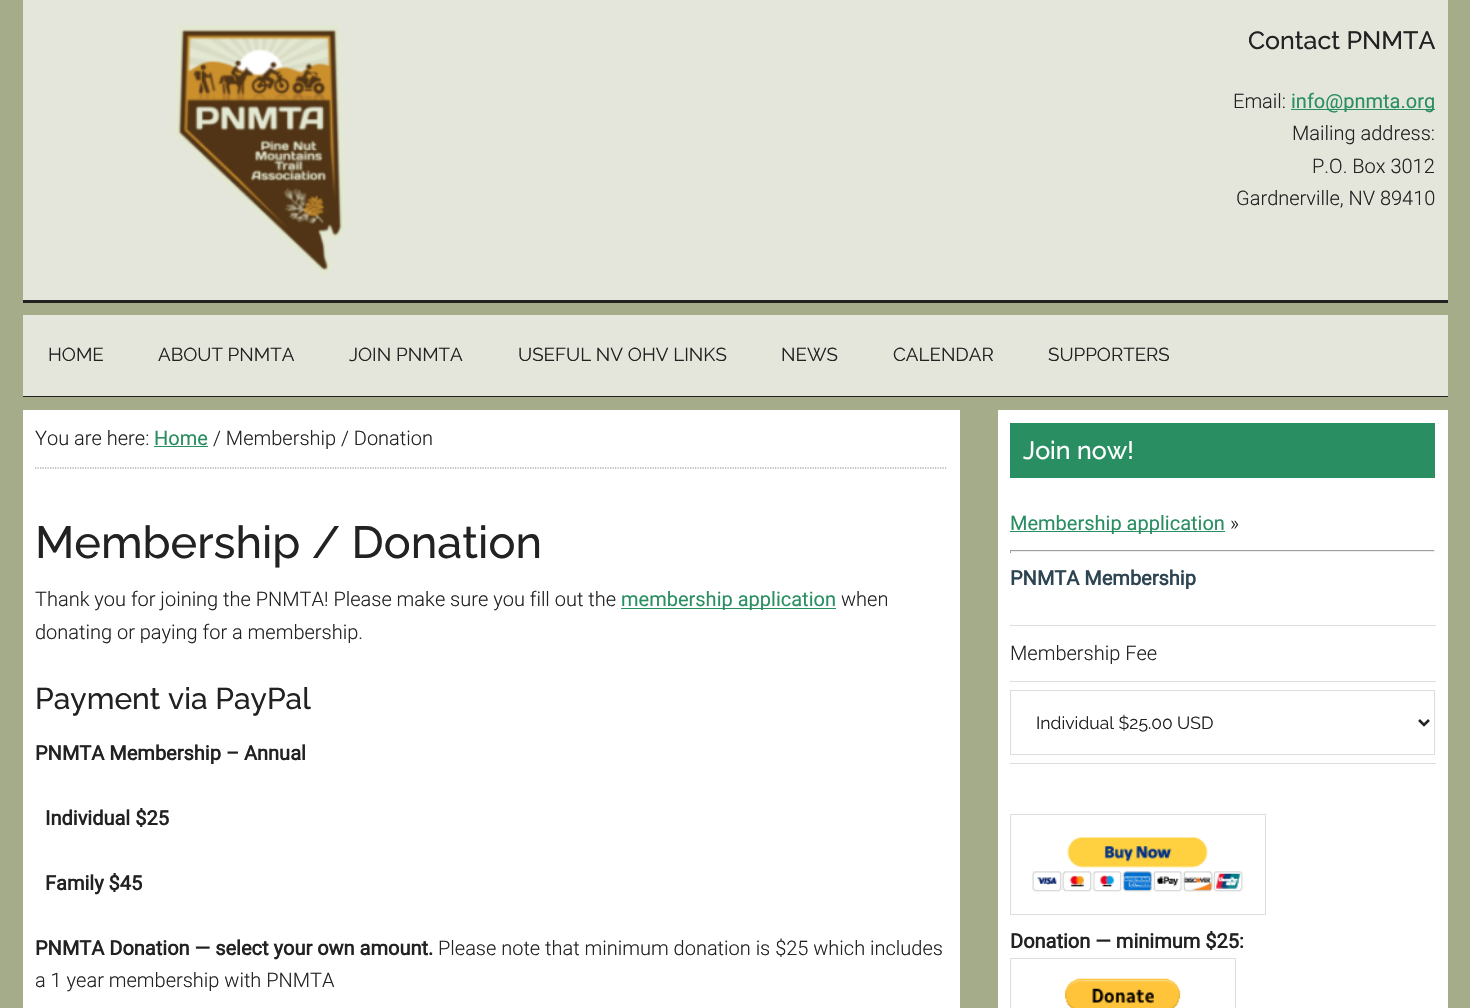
#include "include/core/SkBlurTypes.h"
#include "include/core/SkCanvas.h"
#include "include/core/SkData.h"
#include "include/core/SkFont.h"
#include "include/core/SkFontMgr.h"
#include "include/core/SkImage.h"
#include "include/core/SkMaskFilter.h"
#include "include/core/SkPaint.h"
#include "include/core/SkPathBuilder.h"
#include "include/core/SkTextBlob.h"
#include "include/effects/SkDashPathEffect.h"
#include "include/effects/SkGradientShader.h"
#include "include/utils/SkParsePath.h"

extern sk_sp<SkFontMgr> fontMgr;

void draw(SkCanvas* canvas) {
  SkPaint p;
  p.setAntiAlias(true);
  canvas->clear(SkColorSetRGB(165, 172, 138));
  p.setColor(SkColorSetRGB(228, 230, 220));
  canvas->drawRect(SkRect::MakeLTRB(23, 0, 1448, 300), p);
  p.setColor(SkColorSetRGB(34, 34, 34));
  canvas->drawRect(SkRect::MakeLTRB(23, 300, 1448, 303), p);
  canvas->drawImageRect(SkImages::DeferredFromEncodedData(SkData::MakeFromFileName("images/1.png")), SkRect::MakeLTRB(174, 25, 346, 275), SkSamplingOptions());
  p.setColor(SkColorSetRGB(41, 142, 97));
  canvas->drawRect(SkRect::MakeLTRB(1291, 109, 1435, 110), p);
  p.setColor(SkColorSetRGB(34, 34, 34));
  canvas->drawRect(SkRect::MakeLTRB(23, 396, 1448, 397), p);
  p.setColor(SkColorSetRGB(228, 230, 220));
  canvas->drawRect(SkRect::MakeLTRB(23, 315, 1448, 396), p);
  p.setColor(SK_ColorWHITE);
  canvas->drawRect(SkRect::MakeLTRB(23, 410, 960, 1008), p);
  p.setStyle(SkPaint::kStroke_Style);
  p.setStrokeWidth(1.2f);
  p.setColor(SkColorSetRGB(136, 136, 136));
  p.setPathEffect(SkDashPathEffect::Make({{1.25f, 1.25f}}, 0));
  canvas->drawPath(SkPathBuilder().moveTo(35, 468).lineTo(947.5f, 468).detach(), p);
  p.setPathEffect(nullptr);
  p.setStyle(SkPaint::kFill_Style);
  p.setColor(SkColorSetRGB(41, 142, 97));
  canvas->drawRect(SkRect::MakeLTRB(154, 446, 208, 447), p);
  canvas->drawRect(SkRect::MakeLTRB(621, 608, 836, 609), p);
  p.setColor(SK_ColorWHITE);
  canvas->drawRect(SkRect::MakeLTRB(998, 410, 1448, 1008), p);
  p.setColor(SkColorSetRGB(41, 142, 97));
  canvas->drawRect(SkRect::MakeLTRB(1010, 423, 1435, 478), p);
  canvas->drawRect(SkRect::MakeLTRB(1010, 531, 1225, 532), p);
  p.setColor(SkColorSetRGB(159, 159, 159));
  canvas->drawRect(SkRect::MakeLTRB(1010, 550, 1435, 551), p);
  p.setColor(SkColorSetRGB(238, 238, 238));
  canvas->drawRect(SkRect::MakeLTRB(1434, 550, 1435, 553), p);
  canvas->drawRect(SkRect::MakeLTRB(1010, 551, 1435, 552), p);
  p.setColor(SkColorSetRGB(159, 159, 159));
  canvas->drawRect(SkRect::MakeLTRB(1010, 550, 1011, 553), p);
  p.setColor(SkColorSetRGB(221, 221, 221));
  canvas->drawRect(SkRect::MakeLTRB(1010, 763, 1436, 764), p);
  canvas->drawRect(SkRect::MakeLTRB(1010, 625, 1436, 626), p);
  canvas->drawRect(SkRect::MakeLTRB(1010, 681, 1436, 682), p);
  p.setStyle(SkPaint::kStroke_Style);
  p.setStrokeWidth(1);
  canvas->drawRect(SkRect::MakeLTRB(1010.5f, 690.5f, 1434.5f, 754.5f), p);
  p.setStrokeWidth(2.5f);
  p.setColor(SkColorSetRGB(34, 34, 34));
  canvas->drawPath(SkPathBuilder().moveTo(1419, 720).lineTo(1424, 725).lineTo(1429, 720).detach(), p);
  p.setStrokeWidth(1);
  p.setColor(SkColorSetRGB(221, 221, 221));
  canvas->drawRect(SkRect::MakeLTRB(1010.5f, 814.5f, 1265.5f, 914.5f), p);
  canvas->drawImageRect(SkImages::DeferredFromEncodedData(SkData::MakeFromFileName("images/2.png")), SkRect::MakeLTRB(1032, 837, 1243, 892), SkSamplingOptions());
  canvas->drawRect(SkRect::MakeLTRB(1010.5f, 958.5f, 1235.5f, 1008.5f), p);
  canvas->drawImageRect(SkImages::DeferredFromEncodedData(SkData::MakeFromFileName("images/3.png")), SkRect::MakeLTRB(1064, 978, 1181, 1008), SkSamplingOptions());
  SkFont font1(fontMgr->matchFamilyStyle("Raleway", SkFontStyle(500, SkFontStyle::kNormal_Width, SkFontStyle::kUpright_Slant)), 25);
  font1.setSubpixel(true);
  p.setStyle(SkPaint::kFill_Style);
  p.setColor(SkColorSetRGB(34, 34, 34));
  canvas->drawString("Contact PNMTA", 1248, 49, font1, p);
  SkFont font2(fontMgr->matchFamilyStyle("Roboto", SkFontStyle(300, SkFontStyle::kNormal_Width, SkFontStyle::kUpright_Slant)), 20);
  font2.setSubpixel(true);
  canvas->drawString("Email:", 1233, 108, font2, p);
  SkFont font3(fontMgr->matchFamilyStyle("Roboto", SkFontStyle::Normal()), 20);
  font3.setSubpixel(true);
  p.setColor(SkColorSetRGB(41, 142, 97));
  canvas->drawString("info@pnmta.org", 1291, 108, font3, p);
  p.setColor(SkColorSetRGB(34, 34, 34));
  canvas->drawString("Mailing address:", 1292, 140, font2, p);
  canvas->drawString("P.O. Box 3012", 1312, 173, font2, p);
  canvas->drawString("Gardnerville, NV 89410", 1236, 205, font2, p);
  SkFont font4(fontMgr->matchFamilyStyle("Raleway", SkFontStyle::Normal()), 18.75f);
  font4.setSubpixel(true);
  canvas->drawString("HOME", 48, 361, font4, p);
  canvas->drawString("ABOUT PNMTA", 158, 361, font4, p);
  canvas->drawString("JOIN PNMTA", 349, 361, font4, p);
  canvas->drawString("USEFUL NV OHV LINKS", 518, 361, font4, p);
  canvas->drawString("NEWS", 781, 361, font4, p);
  canvas->drawString("CALENDAR", 893, 361, font4, p);
  canvas->drawString("SUPPORTERS", 1048, 361, font4, p);
  canvas->drawString("You are here:", 35, 445, font2, p);
  p.setColor(SkColorSetRGB(41, 142, 97));
  canvas->drawString("Home", 154, 445, font3, p);
  p.setColor(SkColorSetRGB(34, 34, 34));
  canvas->drawString("/ Membership / Donation", 213, 445, font2, p);
  SkFont font5(fontMgr->matchFamilyStyle("Raleway", SkFontStyle(500, SkFontStyle::kNormal_Width, SkFontStyle::kUpright_Slant)), 45);
  font5.setSubpixel(true);
  canvas->drawString("Membership / Donation", 35, 558, font5, p);
  canvas->drawString("Thank you for joining the PNMTA! Please make sure you fill out the", 35, 606, font2, p);
  p.setColor(SkColorSetRGB(41, 142, 97));
  canvas->drawString("membership application", 621, 606, font3, p);
  p.setColor(SkColorSetRGB(34, 34, 34));
  canvas->drawString("when", 841, 606, font2, p);
  canvas->drawString("donating or paying for a membership.", 35, 639, font2, p);
  SkFont font6(fontMgr->matchFamilyStyle("Raleway", SkFontStyle(500, SkFontStyle::kNormal_Width, SkFontStyle::kUpright_Slant)), 30);
  font6.setSubpixel(true);
  canvas->drawString("Payment via PayPal", 35, 709, font6, p);
  SkFont font7(fontMgr->matchFamilyStyle("Roboto", SkFontStyle::Bold()), 20);
  font7.setSubpixel(true);
  canvas->drawString("PNMTA Membership – Annual", 35, 760, font7, p);
  canvas->drawString("Individual $25", 45, 825, font7, p);
  canvas->drawString("Family $45", 45, 890, font7, p);
  canvas->drawString("PNMTA Donation — select your own amount.", 35, 955, font7, p);
  canvas->drawString("Please note that minimum donation is $25 which includes", 438, 955, font2, p);
  canvas->drawString("a 1 year membership with PNMTA", 35, 987, font2, p);
  p.setColor(SK_ColorWHITE);
  canvas->drawString("Join now!", 1023, 459, font1, p);
  p.setColor(SkColorSetRGB(41, 142, 97));
  canvas->drawString("Membership application", 1010, 530, font3, p);
  p.setColor(SkColorSetRGB(34, 34, 34));
  canvas->drawString("»", 1230, 530, font2, p);
  p.setColor(SkColorSetRGB(45, 68, 83));
  canvas->drawString("PNMTA Membership", 1010, 585, font7, p);
  p.setColor(SkColorSetRGB(34, 34, 34));
  canvas->drawString("Membership Fee", 1010, 660, font2, p);
  SkFont font8(fontMgr->matchFamilyStyle("Raleway", SkFontStyle::Normal()), 17.5f);
  font8.setSubpixel(true);
  canvas->drawString("Individual $25.00 USD", 1036, 729, font8, p);
  canvas->drawString("Donation — minimum $25:", 1010, 948, font7, p);
}
